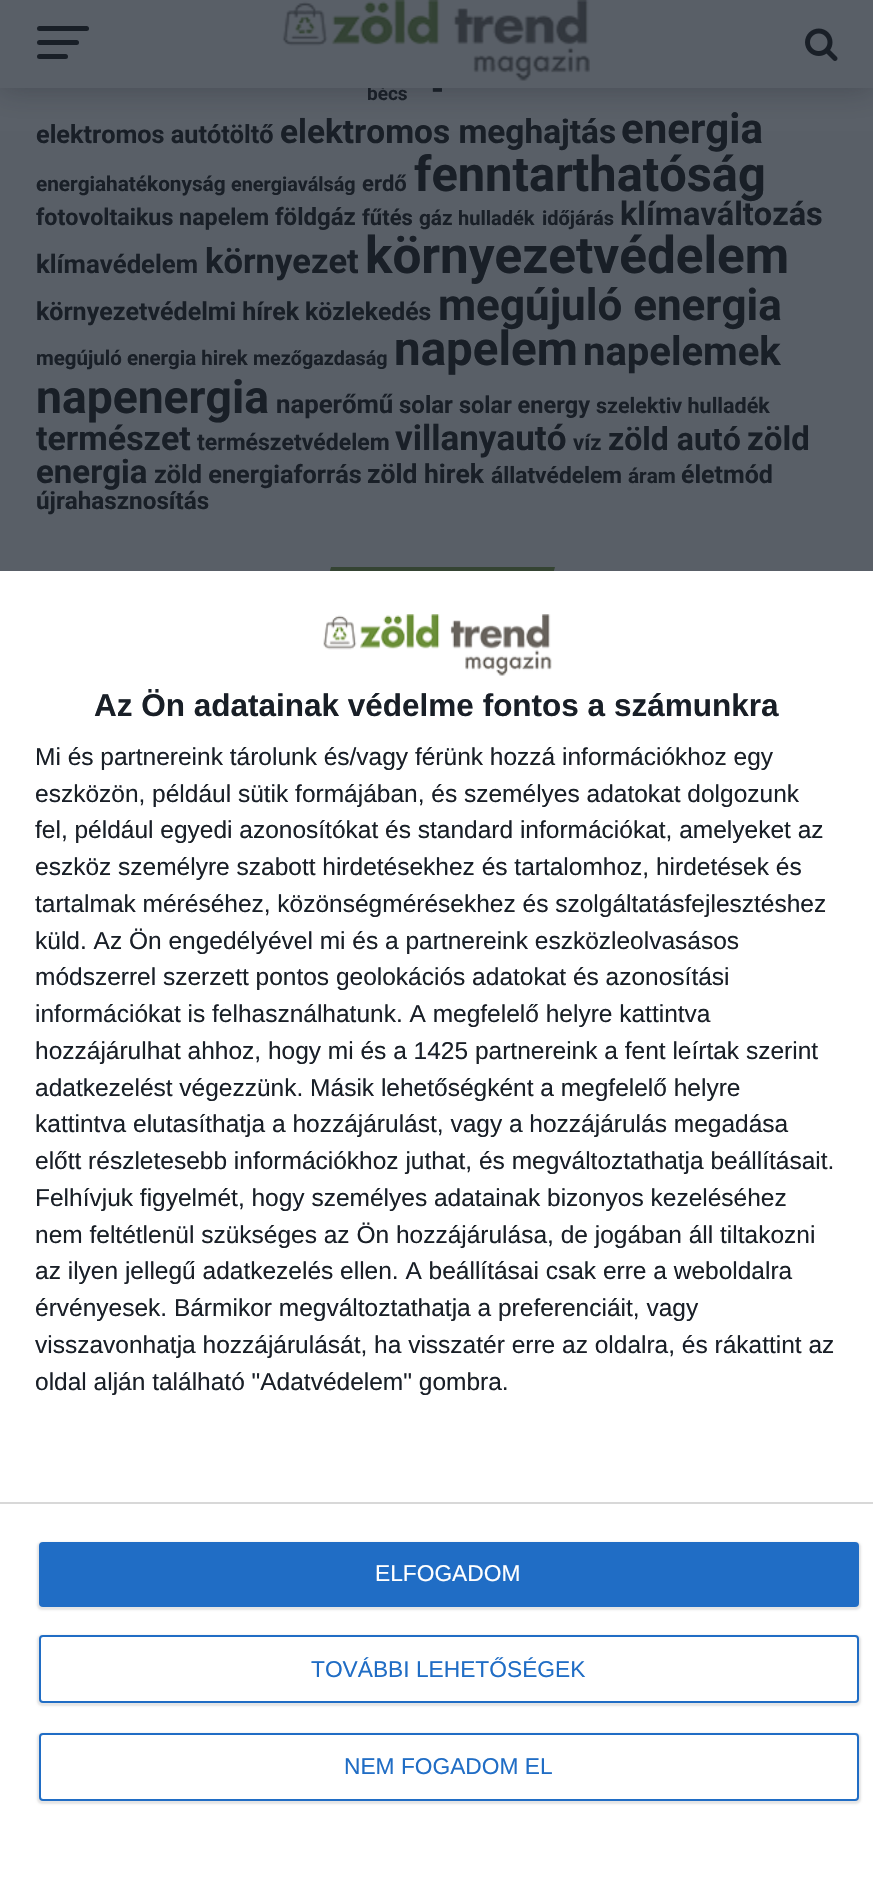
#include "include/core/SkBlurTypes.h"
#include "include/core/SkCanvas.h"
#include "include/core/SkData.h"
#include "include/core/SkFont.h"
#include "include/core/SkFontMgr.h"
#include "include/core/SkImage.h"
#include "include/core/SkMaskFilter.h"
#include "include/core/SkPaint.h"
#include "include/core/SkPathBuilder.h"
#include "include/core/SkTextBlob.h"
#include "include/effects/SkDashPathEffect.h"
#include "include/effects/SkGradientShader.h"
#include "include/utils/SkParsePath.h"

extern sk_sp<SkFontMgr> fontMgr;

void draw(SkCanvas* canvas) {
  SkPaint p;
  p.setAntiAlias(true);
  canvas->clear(SkColorSetRGB(89, 95, 103));
  p.setColor(SkColorSetARGB(77, 25, 31, 39));
  p.setMaskFilter(SkMaskFilter::MakeBlur(kNormal_SkBlurStyle, 14));
  canvas->drawRect(SkRect::MakeLTRB(0, 2, 873, 89), p);
  p.setMaskFilter(nullptr);
  p.setColor(SkColorSetRGB(53, 68, 51));
  canvas->drawPath(SkPathBuilder().moveTo(331, 567).lineTo(555, 567).lineTo(542, 615).lineTo(318, 615).close().detach(), p);
  p.setColor(SK_ColorWHITE);
  canvas->drawRect(SkRect::MakeLTRB(0, 571, 873, 1903), p);
  canvas->drawImageRect(SkImages::DeferredFromEncodedData(SkData::MakeFromFileName("images/3.png")), SkRect::MakeLTRB(323, 614, 552, 676), SkSamplingOptions());
  p.setColor(SkColorSetRGB(216, 216, 216));
  canvas->drawRect(SkRect::MakeLTRB(0, 1502, 873, 1504), p);
  p.setColor(SkColorSetARGB(26, 0, 0, 0));
  p.setMaskFilter(SkMaskFilter::MakeBlur(kNormal_SkBlurStyle, 1));
  canvas->drawRoundRect(SkRect::MakeLTRB(37, 1542, 861, 1610), 5, 5, p);
  p.setMaskFilter(nullptr);
  p.setColor(SkColorSetRGB(32, 109, 197));
  canvas->drawRoundRect(SkRect::MakeLTRB(39, 1542, 859, 1607), 4, 4, p);
  p.setColor(SkColorSetARGB(26, 0, 0, 0));
  p.setMaskFilter(SkMaskFilter::MakeBlur(kNormal_SkBlurStyle, 1));
  canvas->drawRoundRect(SkRect::MakeLTRB(37, 1635, 861, 1706), 5, 5, p);
  p.setMaskFilter(nullptr);
  p.setColor(SK_ColorWHITE);
  canvas->drawRoundRect(SkRect::MakeLTRB(40, 1636, 858, 1702), 3, 3, p);
  p.setStyle(SkPaint::kStroke_Style);
  p.setStrokeWidth(2);
  p.setColor(SkColorSetRGB(32, 109, 197));
  canvas->drawRoundRect(SkRect::MakeLTRB(40, 1636, 858, 1702), 3, 3, p);
  p.setStyle(SkPaint::kFill_Style);
  p.setColor(SkColorSetARGB(26, 0, 0, 0));
  p.setMaskFilter(SkMaskFilter::MakeBlur(kNormal_SkBlurStyle, 1));
  canvas->drawRoundRect(SkRect::MakeLTRB(37, 1733, 861, 1804), 5, 5, p);
  p.setMaskFilter(nullptr);
  p.setColor(SK_ColorWHITE);
  canvas->drawRoundRect(SkRect::MakeLTRB(40, 1734, 858, 1800), 3, 3, p);
  p.setStyle(SkPaint::kStroke_Style);
  p.setColor(SkColorSetRGB(32, 109, 197));
  canvas->drawRoundRect(SkRect::MakeLTRB(40, 1734, 858, 1800), 3, 3, p);
  SkFont font1(fontMgr->matchFamilyStyle("Roboto", SkFontStyle::Bold()), 19);
  font1.setSubpixel(true);
  p.setStyle(SkPaint::kFill_Style);
  p.setColor(SkColorSetRGB(25, 31, 39));
  canvas->drawString("bécs", 367, 100, font1, p);
  p.setColor(SkColorSetRGB(89, 95, 103));
  canvas->drawRect(SkRect::MakeLTRB(0, 0, 873, 88), p);
  canvas->drawImageRect(SkImages::DeferredFromEncodedData(SkData::MakeFromFileName("images/2.png")), SkRect::MakeLTRB(805, 28, 838, 61), SkSamplingOptions());
  canvas->drawImageRect(SkImages::DeferredFromEncodedData(SkData::MakeFromFileName("images/1.png")), SkRect::MakeLTRB(282, 0, 590, 81), SkSamplingOptions());
  p.setColor(SkColorSetRGB(25, 31, 39));
  canvas->drawRoundRect(SkRect::MakeLTRB(37, 54, 68, 59), 2.5f, 2.5f, p);
  canvas->drawRoundRect(SkRect::MakeLTRB(37, 40, 79, 45), 2.5f, 2.5f, p);
  canvas->drawRoundRect(SkRect::MakeLTRB(37, 26, 89, 31), 2.5f, 2.5f, p);
  SkFont font2(fontMgr->matchFamilyStyle("Roboto", SkFontStyle::Bold()), 33);
  font2.setSubpixel(true);
  canvas->drawString("-", 431, 100, font2, p);
  SkFont font3(fontMgr->matchFamilyStyle("Roboto", SkFontStyle::Bold()), 25.25f);
  font3.setSubpixel(true);
  canvas->drawString("elektromos autótöltő", 36, 143, font3, p);
  SkFont font4(fontMgr->matchFamilyStyle("Roboto", SkFontStyle::Bold()), 33.4f);
  font4.setSubpixel(true);
  canvas->drawString("elektromos meghajtás", 280, 143, font4, p);
  SkFont font5(fontMgr->matchFamilyStyle("Roboto", SkFontStyle::Bold()), 42);
  font5.setSubpixel(true);
  canvas->drawString("energia", 621, 143, font5, p);
  SkFont font6(fontMgr->matchFamilyStyle("Roboto", SkFontStyle::Bold()), 20.75f);
  font6.setSubpixel(true);
  canvas->drawString("energiahatékonyság", 36, 191, font6, p);
  SkFont font7(fontMgr->matchFamilyStyle("Roboto", SkFontStyle::Bold()), 19.75f);
  font7.setSubpixel(true);
  canvas->drawString("energiaválság", 231, 191, font7, p);
  SkFont font8(fontMgr->matchFamilyStyle("Roboto", SkFontStyle::Bold()), 22);
  font8.setSubpixel(true);
  canvas->drawString("erdő", 362, 191, font8, p);
  SkFont font9(fontMgr->matchFamilyStyle("Roboto", SkFontStyle::Bold()), 48.75f);
  font9.setSubpixel(true);
  canvas->drawString("fenntarthatóság", 414, 191, font9, p);
  SkFont font10(fontMgr->matchFamilyStyle("Roboto", SkFontStyle::Bold()), 23.25f);
  font10.setSubpixel(true);
  canvas->drawString("fotovoltaikus napelem", 36, 225, font10, p);
  SkFont font11(fontMgr->matchFamilyStyle("Roboto", SkFontStyle::Bold()), 24);
  font11.setSubpixel(true);
  canvas->drawString("földgáz", 275, 225, font11, p);
  canvas->drawString("fűtés", 362, 225, font8, p);
  canvas->drawString("gáz", 419, 225, font6, p);
  SkFont font12(fontMgr->matchFamilyStyle("Roboto", SkFontStyle::Bold()), 20);
  font12.setSubpixel(true);
  canvas->drawString("hulladék", 458, 225, font12, p);
  canvas->drawString("időjárás", 542, 225, font12, p);
  SkFont font13(fontMgr->matchFamilyStyle("Roboto", SkFontStyle::Bold()), 32.5f);
  font13.setSubpixel(true);
  canvas->drawString("klímaváltozás", 620, 225, font13, p);
  SkFont font14(fontMgr->matchFamilyStyle("Roboto", SkFontStyle::Bold()), 25.75f);
  font14.setSubpixel(true);
  canvas->drawString("klímavédelem", 36, 273, font14, p);
  SkFont font15(fontMgr->matchFamilyStyle("Roboto", SkFontStyle::Bold()), 34.5f);
  font15.setSubpixel(true);
  canvas->drawString("környezet", 205, 273, font15, p);
  SkFont font16(fontMgr->matchFamilyStyle("Roboto", SkFontStyle::Bold()), 51.25f);
  font16.setSubpixel(true);
  canvas->drawString("környezetvédelem", 365, 273, font16, p);
  SkFont font17(fontMgr->matchFamilyStyle("Roboto", SkFontStyle::Bold()), 25);
  font17.setSubpixel(true);
  canvas->drawString("környezetvédelmi hírek", 36, 320, font17, p);
  SkFont font18(fontMgr->matchFamilyStyle("Roboto", SkFontStyle::Bold()), 24.75f);
  font18.setSubpixel(true);
  canvas->drawString("közlekedés", 305, 320, font18, p);
  SkFont font19(fontMgr->matchFamilyStyle("Roboto", SkFontStyle::Bold()), 44);
  font19.setSubpixel(true);
  canvas->drawString("megújuló energia", 438, 320, font19, p);
  SkFont font20(fontMgr->matchFamilyStyle("Roboto", SkFontStyle::Bold()), 20.5f);
  font20.setSubpixel(true);
  canvas->drawString("megújuló energia hirek", 36, 365, font20, p);
  canvas->drawString("mezőgazdaság", 253, 365, font7, p);
  SkFont font21(fontMgr->matchFamilyStyle("Roboto", SkFontStyle::Bold()), 47.5f);
  font21.setSubpixel(true);
  canvas->drawString("napelem", 394, 365, font21, p);
  SkFont font22(fontMgr->matchFamilyStyle("Roboto", SkFontStyle::Bold()), 40);
  font22.setSubpixel(true);
  canvas->drawString("napelemek", 583, 365, font22, p);
  SkFont font23(fontMgr->matchFamilyStyle("Roboto", SkFontStyle::Bold()), 46.25f);
  font23.setSubpixel(true);
  canvas->drawString("napenergia", 36, 413, font23, p);
  canvas->drawString("naperőmű", 276, 413, font14, p);
  canvas->drawString("solar", 399, 413, font11, p);
  SkFont font24(fontMgr->matchFamilyStyle("Roboto", SkFontStyle::Bold()), 23.5f);
  font24.setSubpixel(true);
  canvas->drawString("solar energy", 459, 413, font24, p);
  SkFont font25(fontMgr->matchFamilyStyle("Roboto", SkFontStyle::Bold()), 21.5f);
  font25.setSubpixel(true);
  canvas->drawString("szelektiv hulladék", 596, 413, font25, p);
  SkFont font26(fontMgr->matchFamilyStyle("Roboto", SkFontStyle::Bold()), 34);
  font26.setSubpixel(true);
  canvas->drawString("természet", 36, 450, font26, p);
  SkFont font27(fontMgr->matchFamilyStyle("Roboto", SkFontStyle::Bold()), 23);
  font27.setSubpixel(true);
  canvas->drawString("természetvédelem", 197, 450, font27, p);
  SkFont font28(fontMgr->matchFamilyStyle("Roboto", SkFontStyle::Bold()), 35);
  font28.setSubpixel(true);
  canvas->drawString("villanyautó", 395, 450, font28, p);
  canvas->drawString("víz", 573, 450, font8, p);
  SkFont font29(fontMgr->matchFamilyStyle("Roboto", SkFontStyle::Bold()), 32);
  font29.setSubpixel(true);
  canvas->drawString("zöld autó", 608, 450, font29, p);
  canvas->drawString("zöld", 747, 450, font2, p);
  canvas->drawString("energia", 36, 483, font2, p);
  canvas->drawString("zöld energiaforrás", 154, 483, font3, p);
  SkFont font30(fontMgr->matchFamilyStyle("Roboto", SkFontStyle::Bold()), 26.5f);
  font30.setSubpixel(true);
  canvas->drawString("zöld hirek", 367, 483, font30, p);
  SkFont font31(fontMgr->matchFamilyStyle("Roboto", SkFontStyle::Bold()), 22.75f);
  font31.setSubpixel(true);
  canvas->drawString("állatvédelem", 491, 483, font31, p);
  canvas->drawString("áram", 628, 483, font6, p);
  canvas->drawString("életmód", 681, 483, font17, p);
  SkFont font32(fontMgr->matchFamilyStyle("Roboto", SkFontStyle::Bold()), 24.25f);
  font32.setSubpixel(true);
  canvas->drawString("újrahasznosítás", 36, 509, font32, p);
  SkFont font33(fontMgr->matchFamilyStyle("Liberation Sans", SkFontStyle::Bold()), 31.5f);
  font33.setSubpixel(true);
  canvas->drawString("Az Ön adatainak védelme fontos a számunkra", 94, 716, font33, p);
  SkFont font34(fontMgr->matchFamilyStyle("Liberation Sans", SkFontStyle::Normal()), 24.5f);
  font34.setSubpixel(true);
  canvas->drawString("Mi és partnereink tárolunk és/vagy férünk hozzá információkhoz egy", 35, 765, font34, p);
  canvas->drawString("eszközön, például sütik formájában, és személyes adatokat dolgozunk", 35, 802, font34, p);
  canvas->drawString("fel, például egyedi azonosítókat és standard információkat, amelyeket az", 35, 838, font34, p);
  canvas->drawString("eszköz személyre szabott hirdetésekhez és tartalomhoz, hirdetések és", 35, 875, font34, p);
  canvas->drawString("tartalmak méréséhez, közönségmérésekhez és szolgáltatásfejlesztéshez", 35, 912, font34, p);
  canvas->drawString("küld. Az Ön engedélyével mi és a partnereink eszközleolvasásos", 35, 949, font34, p);
  canvas->drawString("módszerrel szerzett pontos geolokációs adatokat és azonosítási", 35, 985, font34, p);
  canvas->drawString("információkat is felhasználhatunk. A megfelelő helyre kattintva", 35, 1022, font34, p);
  canvas->drawString("hozzájárulhat ahhoz, hogy mi és a 1425 partnereink a fent leírtak szerint", 35, 1059, font34, p);
  canvas->drawString("adatkezelést végezzünk. Másik lehetőségként a megfelelő helyre", 35, 1096, font34, p);
  canvas->drawString("kattintva elutasíthatja a hozzájárulást, vagy a hozzájárulás megadása", 35, 1132, font34, p);
  canvas->drawString("előtt részletesebb információkhoz juthat, és megváltoztathatja beállításait.", 35, 1169, font34, p);
  canvas->drawString("Felhívjuk figyelmét, hogy személyes adatainak bizonyos kezeléséhez", 35, 1206, font34, p);
  canvas->drawString("nem feltétlenül szükséges az Ön hozzájárulása, de jogában áll tiltakozni", 35, 1243, font34, p);
  canvas->drawString("az ilyen jellegű adatkezelés ellen. A beállításai csak erre a weboldalra", 35, 1279, font34, p);
  canvas->drawString("érvényesek. Bármikor megváltoztathatja a preferenciáit, vagy", 35, 1316, font34, p);
  canvas->drawString("visszavonhatja hozzájárulását, ha visszatér erre az oldalra, és rákattint az", 35, 1353, font34, p);
  canvas->drawString("oldal alján található \"Adatvédelem\" gombra.", 35, 1390, font34, p);
  SkFont font35(fontMgr->matchFamilyStyle("Liberation Sans", SkFontStyle::Normal()), 22.75f);
  font35.setSubpixel(true);
  p.setColor(SK_ColorWHITE);
  canvas->drawString("ELFOGADOM", 375, 1581, font35, p);
  p.setColor(SkColorSetRGB(32, 109, 197));
  canvas->drawString("TOVÁBBI LEHETŐSÉGEK", 311, 1677, font35, p);
  canvas->drawString("NEM FOGADOM EL", 344, 1774, font35, p);
}
